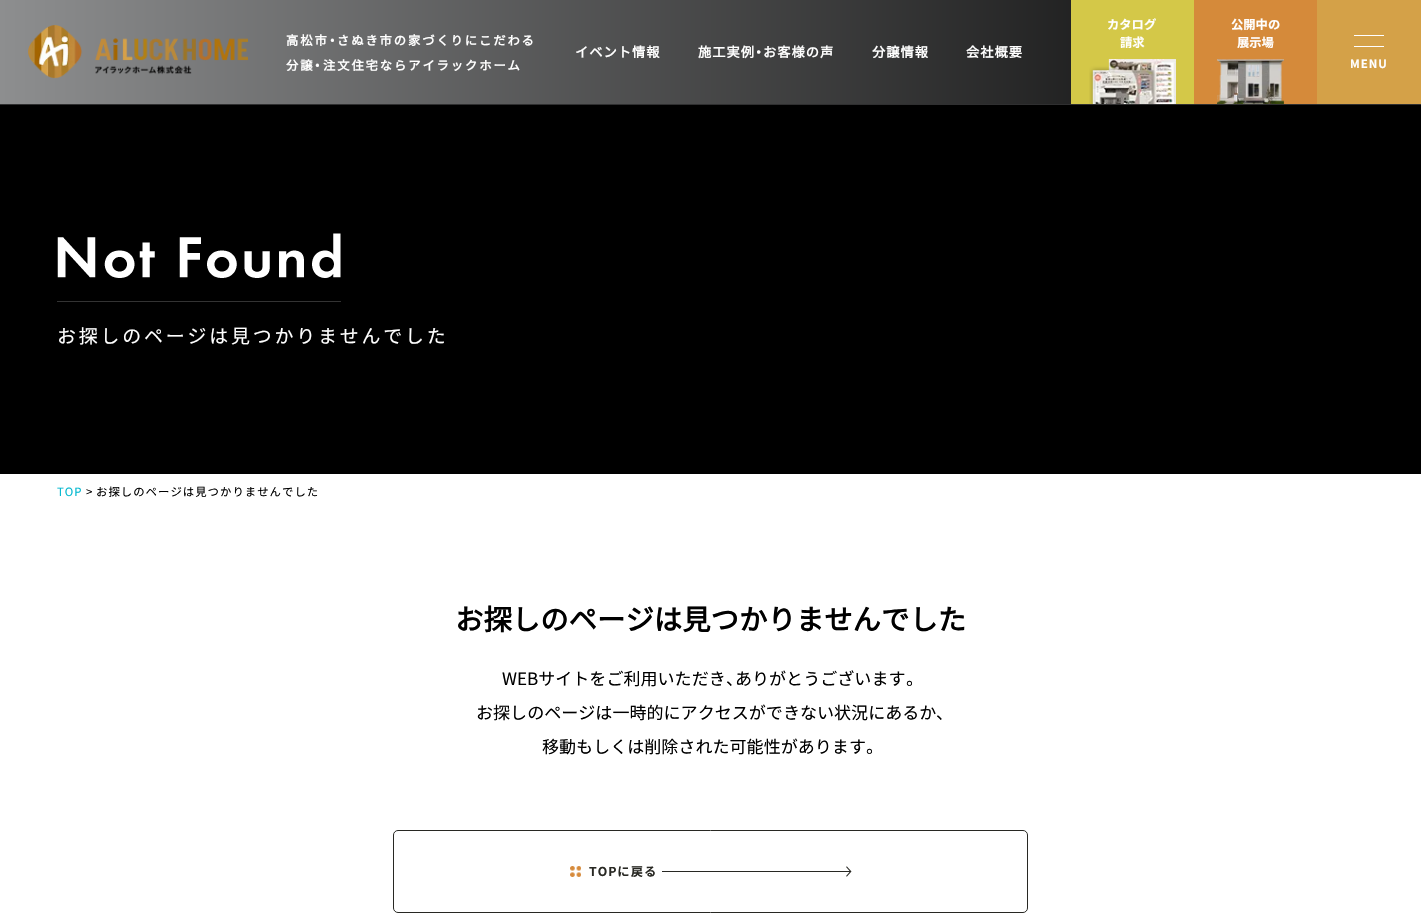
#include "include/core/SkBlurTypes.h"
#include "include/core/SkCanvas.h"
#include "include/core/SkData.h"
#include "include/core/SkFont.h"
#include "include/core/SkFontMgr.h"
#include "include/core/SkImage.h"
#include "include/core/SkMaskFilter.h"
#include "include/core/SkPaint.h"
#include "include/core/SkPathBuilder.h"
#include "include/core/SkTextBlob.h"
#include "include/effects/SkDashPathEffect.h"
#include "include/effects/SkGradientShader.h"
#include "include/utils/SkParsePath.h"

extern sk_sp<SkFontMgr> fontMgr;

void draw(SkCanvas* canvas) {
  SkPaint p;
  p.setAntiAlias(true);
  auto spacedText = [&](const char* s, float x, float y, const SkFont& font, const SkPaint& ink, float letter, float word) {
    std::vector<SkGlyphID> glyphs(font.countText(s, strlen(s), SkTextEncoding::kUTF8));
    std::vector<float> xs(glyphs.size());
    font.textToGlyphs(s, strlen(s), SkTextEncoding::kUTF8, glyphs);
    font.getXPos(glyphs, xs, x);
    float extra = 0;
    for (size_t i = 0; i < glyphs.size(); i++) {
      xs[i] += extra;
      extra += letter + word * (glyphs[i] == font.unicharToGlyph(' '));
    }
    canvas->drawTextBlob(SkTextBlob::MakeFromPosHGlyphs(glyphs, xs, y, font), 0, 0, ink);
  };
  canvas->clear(SK_ColorWHITE);
  p.setColor(SkColorSetRGB(47, 47, 48));
  canvas->drawRect(SkRect::MakeLTRB(0, 104, 1421, 105), p);
  {
    const SkColor colors[] = {SkColorSetRGB(141, 142, 143), SK_ColorBLACK};
    const float stops[] = {0, 1};
    const SkPoint ends[] = {{0, 52}, {1421, 52}};
    p.setShader(SkGradientShader::MakeLinear(ends, colors, stops, 2, SkTileMode::kClamp));
    p.setAlpha(255);
  }
  canvas->drawRect(SkRect::MakeLTRB(0, 0, 1071, 104), p);
  canvas->drawImageRect(SkImages::DeferredFromEncodedData(SkData::MakeFromFileName("images/1.png")), SkRect::MakeLTRB(28, 25, 248, 79), SkSamplingOptions());
  p.setShader(nullptr);
  p.setColor(SkColorSetRGB(212, 200, 72));
  canvas->drawRect(SkRect::MakeLTRB(1071, 0, 1194, 104), p);
  canvas->drawImageRect(SkImages::DeferredFromEncodedData(SkData::MakeFromFileName("images/2.png")), SkRect::MakeLTRB(1089, 59, 1176, 104), SkSamplingOptions());
  p.setColor(SkColorSetRGB(213, 138, 58));
  canvas->drawRect(SkRect::MakeLTRB(1194, 0, 1317, 104), p);
  canvas->drawImageRect(SkImages::DeferredFromEncodedData(SkData::MakeFromFileName("images/3.png")), SkRect::MakeLTRB(1217, 59, 1284, 104), SkSamplingOptions());
  p.setColor(SkColorSetRGB(212, 161, 72));
  canvas->drawRect(SkRect::MakeLTRB(1317, 0, 1421, 104), p);
  p.setColor(SK_ColorWHITE);
  canvas->drawRect(SkRect::MakeLTRB(1354, 35, 1384, 36), p);
  canvas->drawRect(SkRect::MakeLTRB(1354, 46, 1384, 47), p);
  p.setColor(SK_ColorBLACK);
  canvas->drawRect(SkRect::MakeLTRB(0, 105, 1421, 474), p);
  canvas->drawImageRect(SkImages::DeferredFromEncodedData(SkData::MakeFromFileName("images/4.png")), SkRect::MakeLTRB(57, 233, 341, 278), SkSamplingOptions());
  p.setColor(SkColorSetRGB(51, 51, 51));
  canvas->drawRect(SkRect::MakeLTRB(57, 301, 341, 302), p);
  p.setStyle(SkPaint::kStroke_Style);
  p.setStrokeWidth(1);
  p.setColor(SkColorSetRGB(40, 40, 35));
  canvas->drawRoundRect(SkRect::MakeLTRB(393.5f, 830.5f, 1027.5f, 912.5f), 4.5f, 4.5f, p);
  canvas->drawImageRect(SkImages::DeferredFromEncodedData(SkData::MakeFromFileName("images/5.png")), SkRect::MakeLTRB(570, 866, 581, 877), SkSamplingOptions());
  p.setStyle(SkPaint::kFill_Style);
  canvas->drawPath(SkPathBuilder().moveTo(846.5f, 866).lineTo(851.5f, 871.5f).lineTo(850, 871.5f).lineTo(846.5f, 867.5f).close().detach(), p);
  canvas->drawPath(SkPathBuilder().moveTo(851.5f, 871.5f).lineTo(846.5f, 877).lineTo(846.5f, 875.5f).lineTo(850, 871.5f).close().detach(), p);
  canvas->drawRect(SkRect::MakeLTRB(662, 871, 851, 872), p);
  SkFont font1(fontMgr->matchFamilyStyle("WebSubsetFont", SkFontStyle::Bold()), 12.3f);
  font1.setSubpixel(true);
  p.setColor(SK_ColorWHITE);
  spacedText("高松市", 286, 45, font1, p, 1.9f, 0);
  SkFont font2(fontMgr->matchFamilyStyle("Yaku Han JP", SkFontStyle::Bold()), 12.3f);
  font2.setSubpixel(true);
  spacedText("・", 329, 45, font2, p, 1.9f, 0);
  spacedText("さぬき市の家づくりにこだわる", 337, 45, font1, p, 1.9f, 0);
  spacedText("分譲", 286, 70, font1, p, 1.9f, 0);
  spacedText("・", 314, 70, font2, p, 1.9f, 0);
  spacedText("注文住宅ならアイラックホーム", 323, 70, font1, p, 1.9f, 0);
  SkFont font3(fontMgr->matchFamilyStyle("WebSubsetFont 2", SkFontStyle::Bold()), 12.3f);
  font3.setSubpixel(true);
  canvas->drawString("カタログ", 1107, 29, font3, p);
  canvas->drawString("請求", 1120, 47, font3, p);
  canvas->drawString("公開中の", 1231, 29, font3, p);
  canvas->drawString("展示場", 1237, 47, font3, p);
  SkFont font4(fontMgr->matchFamilyStyle("WebSubsetFont", SkFontStyle::Bold()), 13.25f);
  font4.setSubpixel(true);
  spacedText("イベント情報", 575, 57, font4, p, 1, 0);
  spacedText("施工実例", 698, 57, font4, p, 1, 0);
  SkFont font5(fontMgr->matchFamilyStyle("Yaku Han JP", SkFontStyle::Bold()), 13.25f);
  font5.setSubpixel(true);
  spacedText("・", 755, 57, font5, p, 1, 0);
  spacedText("お客様の声", 763, 57, font4, p, 1, 0);
  spacedText("分譲情報", 872, 57, font4, p, 1, 0);
  spacedText("会社概要", 966, 57, font4, p, 1, 0);
  SkFont font6(fontMgr->matchFamilyStyle("WebSubsetFont 2", SkFontStyle::Bold()), 11.4f);
  font6.setSubpixel(true);
  spacedText("MENU", 1350, 68, font6, p, 1, 0);
  SkFont font7(fontMgr->matchFamilyStyle("WebSubsetFont", SkFontStyle::Normal()), 18.95f);
  font7.setSubpixel(true);
  spacedText("お探しのページは見つかりませんでした", 57, 343, font7, p, 2.8f, 0);
  SkFont font8(fontMgr->matchFamilyStyle("WebSubsetFont", SkFontStyle::Normal()), 11.4f);
  font8.setSubpixel(true);
  p.setColor(SkColorSetRGB(0, 183, 206));
  spacedText("TOP", 57, 496, font8, p, 1, 0);
  p.setColor(SK_ColorBLACK);
  spacedText(">", 86, 496, font8, p, 1, 0);
  spacedText("お探しのページは見つかりませんでした", 96, 496, font8, p, 1, 0);
  SkFont font9(fontMgr->matchFamilyStyle("WebSubsetFont", SkFontStyle::Bold()), 28.4f);
  font9.setSubpixel(true);
  canvas->drawString("お探しのページは見つかりませんでした", 455, 630, font9, p);
  SkFont font10(fontMgr->matchFamilyStyle("WebSubsetFont", SkFontStyle::Normal()), 17.05f);
  font10.setSubpixel(true);
  canvas->drawString("WEBサイトをご利用いただき", 502, 685, font10, p);
  SkFont font11(fontMgr->matchFamilyStyle("Yaku Han JP", SkFontStyle::Normal()), 17.05f);
  font11.setSubpixel(true);
  canvas->drawString("、", 726, 685, font11, p);
  canvas->drawString("ありがとうございます", 735, 685, font10, p);
  canvas->drawString("。", 906, 685, font11, p);
  canvas->drawString("お探しのページは一時的にアクセスができない状況にあるか", 476, 719, font10, p);
  canvas->drawString("、", 936, 719, font11, p);
  canvas->drawString("移動もしくは削除された可能性があります", 542, 753, font10, p);
  canvas->drawString("。", 866, 753, font11, p);
  p.setColor(SkColorSetRGB(40, 40, 35));
  spacedText("TOPに戻る", 589, 876, font3, p, 1, 0);
}
